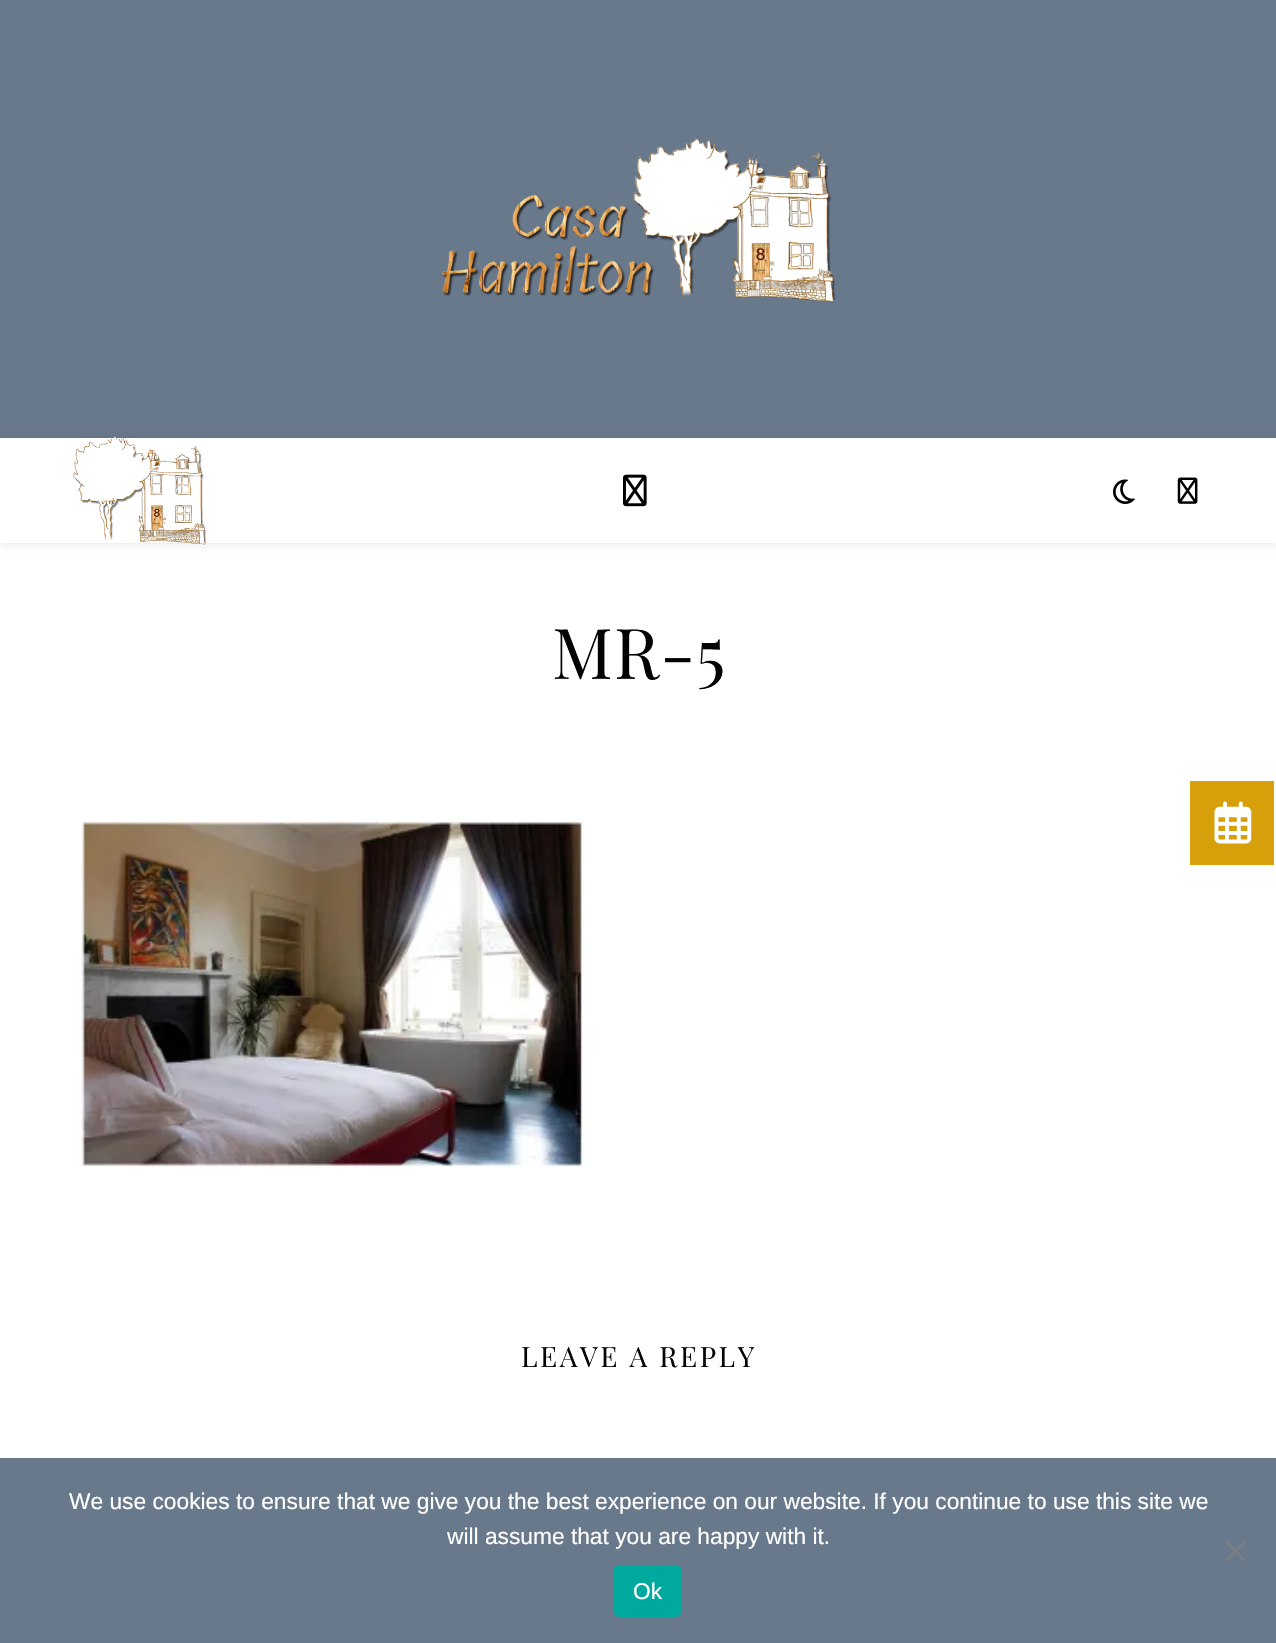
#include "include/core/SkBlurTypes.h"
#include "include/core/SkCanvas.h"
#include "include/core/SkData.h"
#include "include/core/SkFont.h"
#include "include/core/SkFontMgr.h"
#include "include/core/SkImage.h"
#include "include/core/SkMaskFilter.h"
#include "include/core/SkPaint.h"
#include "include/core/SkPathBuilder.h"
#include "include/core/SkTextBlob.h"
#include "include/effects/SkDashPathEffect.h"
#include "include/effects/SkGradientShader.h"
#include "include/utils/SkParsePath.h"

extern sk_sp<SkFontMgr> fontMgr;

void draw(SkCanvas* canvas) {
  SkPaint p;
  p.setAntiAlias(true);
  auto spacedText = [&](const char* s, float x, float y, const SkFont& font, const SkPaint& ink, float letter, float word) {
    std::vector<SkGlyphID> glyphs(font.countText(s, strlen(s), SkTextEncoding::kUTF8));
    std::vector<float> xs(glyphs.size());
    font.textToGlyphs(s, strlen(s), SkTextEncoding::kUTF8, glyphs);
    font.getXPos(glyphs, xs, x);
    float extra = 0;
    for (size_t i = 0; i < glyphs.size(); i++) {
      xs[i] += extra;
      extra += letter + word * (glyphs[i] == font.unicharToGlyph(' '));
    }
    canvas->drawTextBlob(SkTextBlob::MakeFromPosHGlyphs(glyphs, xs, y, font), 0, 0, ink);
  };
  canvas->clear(SK_ColorWHITE);
  p.setColor(SkColorSetRGB(105, 121, 140));
  canvas->drawRect(SkRect::MakeLTRB(0, 0, 1276, 438), p);
  canvas->drawImageRect(SkImages::DeferredFromEncodedData(SkData::MakeFromFileName("images/1.png")), SkRect::MakeLTRB(442, 138, 836, 302), SkSamplingOptions());
  p.setColor(SkColorSetARGB(26, 0, 0, 0));
  p.setMaskFilter(SkMaskFilter::MakeBlur(kNormal_SkBlurStyle, 4.5f));
  canvas->drawRect(SkRect::MakeLTRB(0, 439, 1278, 544), p);
  p.setMaskFilter(nullptr);
  p.setColor(SK_ColorWHITE);
  canvas->drawRect(SkRect::MakeLTRB(0, 438, 1276, 543), p);
  canvas->drawImageRect(SkImages::DeferredFromEncodedData(SkData::MakeFromFileName("images/2.png")), SkRect::MakeLTRB(73, 436, 206, 545), SkSamplingOptions());
  canvas->drawImageRect(SkImages::DeferredFromEncodedData(SkData::MakeFromFileName("images/3.png")), SkRect::MakeLTRB(623, 474, 647, 507), SkSamplingOptions());
  canvas->drawImageRect(SkImages::DeferredFromEncodedData(SkData::MakeFromFileName("images/4.png")), SkRect::MakeLTRB(1113, 479, 1135, 504), SkSamplingOptions());
  canvas->drawImageRect(SkImages::DeferredFromEncodedData(SkData::MakeFromFileName("images/5.png")), SkRect::MakeLTRB(1177, 477, 1198, 504), SkSamplingOptions());
  canvas->drawImageRect(SkImages::DeferredFromEncodedData(SkData::MakeFromFileName("images/6.png")), SkRect::MakeLTRB(78, 820, 588, 1169), SkSamplingOptions());
  p.setColor(SkColorSetRGB(215, 159, 10));
  canvas->drawRect(SkRect::MakeLTRB(1190, 781, 1274, 865), p);
  canvas->drawImageRect(SkImages::DeferredFromEncodedData(SkData::MakeFromFileName("images/7.png")), SkRect::MakeLTRB(1214, 801, 1252, 844), SkSamplingOptions());
  p.setColor(SkColorSetRGB(105, 121, 140));
  canvas->drawRect(SkRect::MakeLTRB(0, 1458, 1276, 1643), p);
  p.setColor(SkColorSetRGB(117, 125, 134));
  canvas->drawPath(SkPathBuilder().moveTo(1243.5f, 1541).lineTo(1246, 1543.5f).lineTo(1227.5f, 1562).lineTo(1225, 1559.5f).close().detach(), p);
  canvas->drawPath(SkPathBuilder().moveTo(1225, 1543.5f).lineTo(1227.5f, 1541).lineTo(1246, 1559.5f).lineTo(1243.5f, 1562).close().detach(), p);
  p.setColor(SkColorSetRGB(0, 169, 157));
  canvas->drawRoundRect(SkRect::MakeLTRB(614, 1565, 681, 1617), 5, 5, p);
  SkFont font1(fontMgr->matchFamilyStyle("Playfair Display", SkFontStyle::Normal()), 70);
  font1.setSubpixel(true);
  p.setColor(SkColorSetRGB(3, 3, 3));
  spacedText("MR-5", 552, 679, font1, p, 1, 0);
  SkFont font2(fontMgr->matchFamilyStyle("Playfair Display", SkFontStyle::Normal()), 28);
  font2.setSubpixel(true);
  spacedText("LEAVE A REPLY", 521, 1367, font2, p, 2.6f, 0);
  SkFont font3(fontMgr->matchFamilyStyle("Liberation Sans", SkFontStyle::Normal()), 22.75f);
  font3.setSubpixel(true);
  p.setColor(SK_ColorWHITE);
  canvas->drawString("We use cookies to ensure that we give you the best experience on our website. If you continue to use this site we", 69, 1509, font3, p);
  canvas->drawString("will assume that you are happy with it.", 447, 1544, font3, p);
  canvas->drawString("Ok", 633, 1599, font3, p);
}
